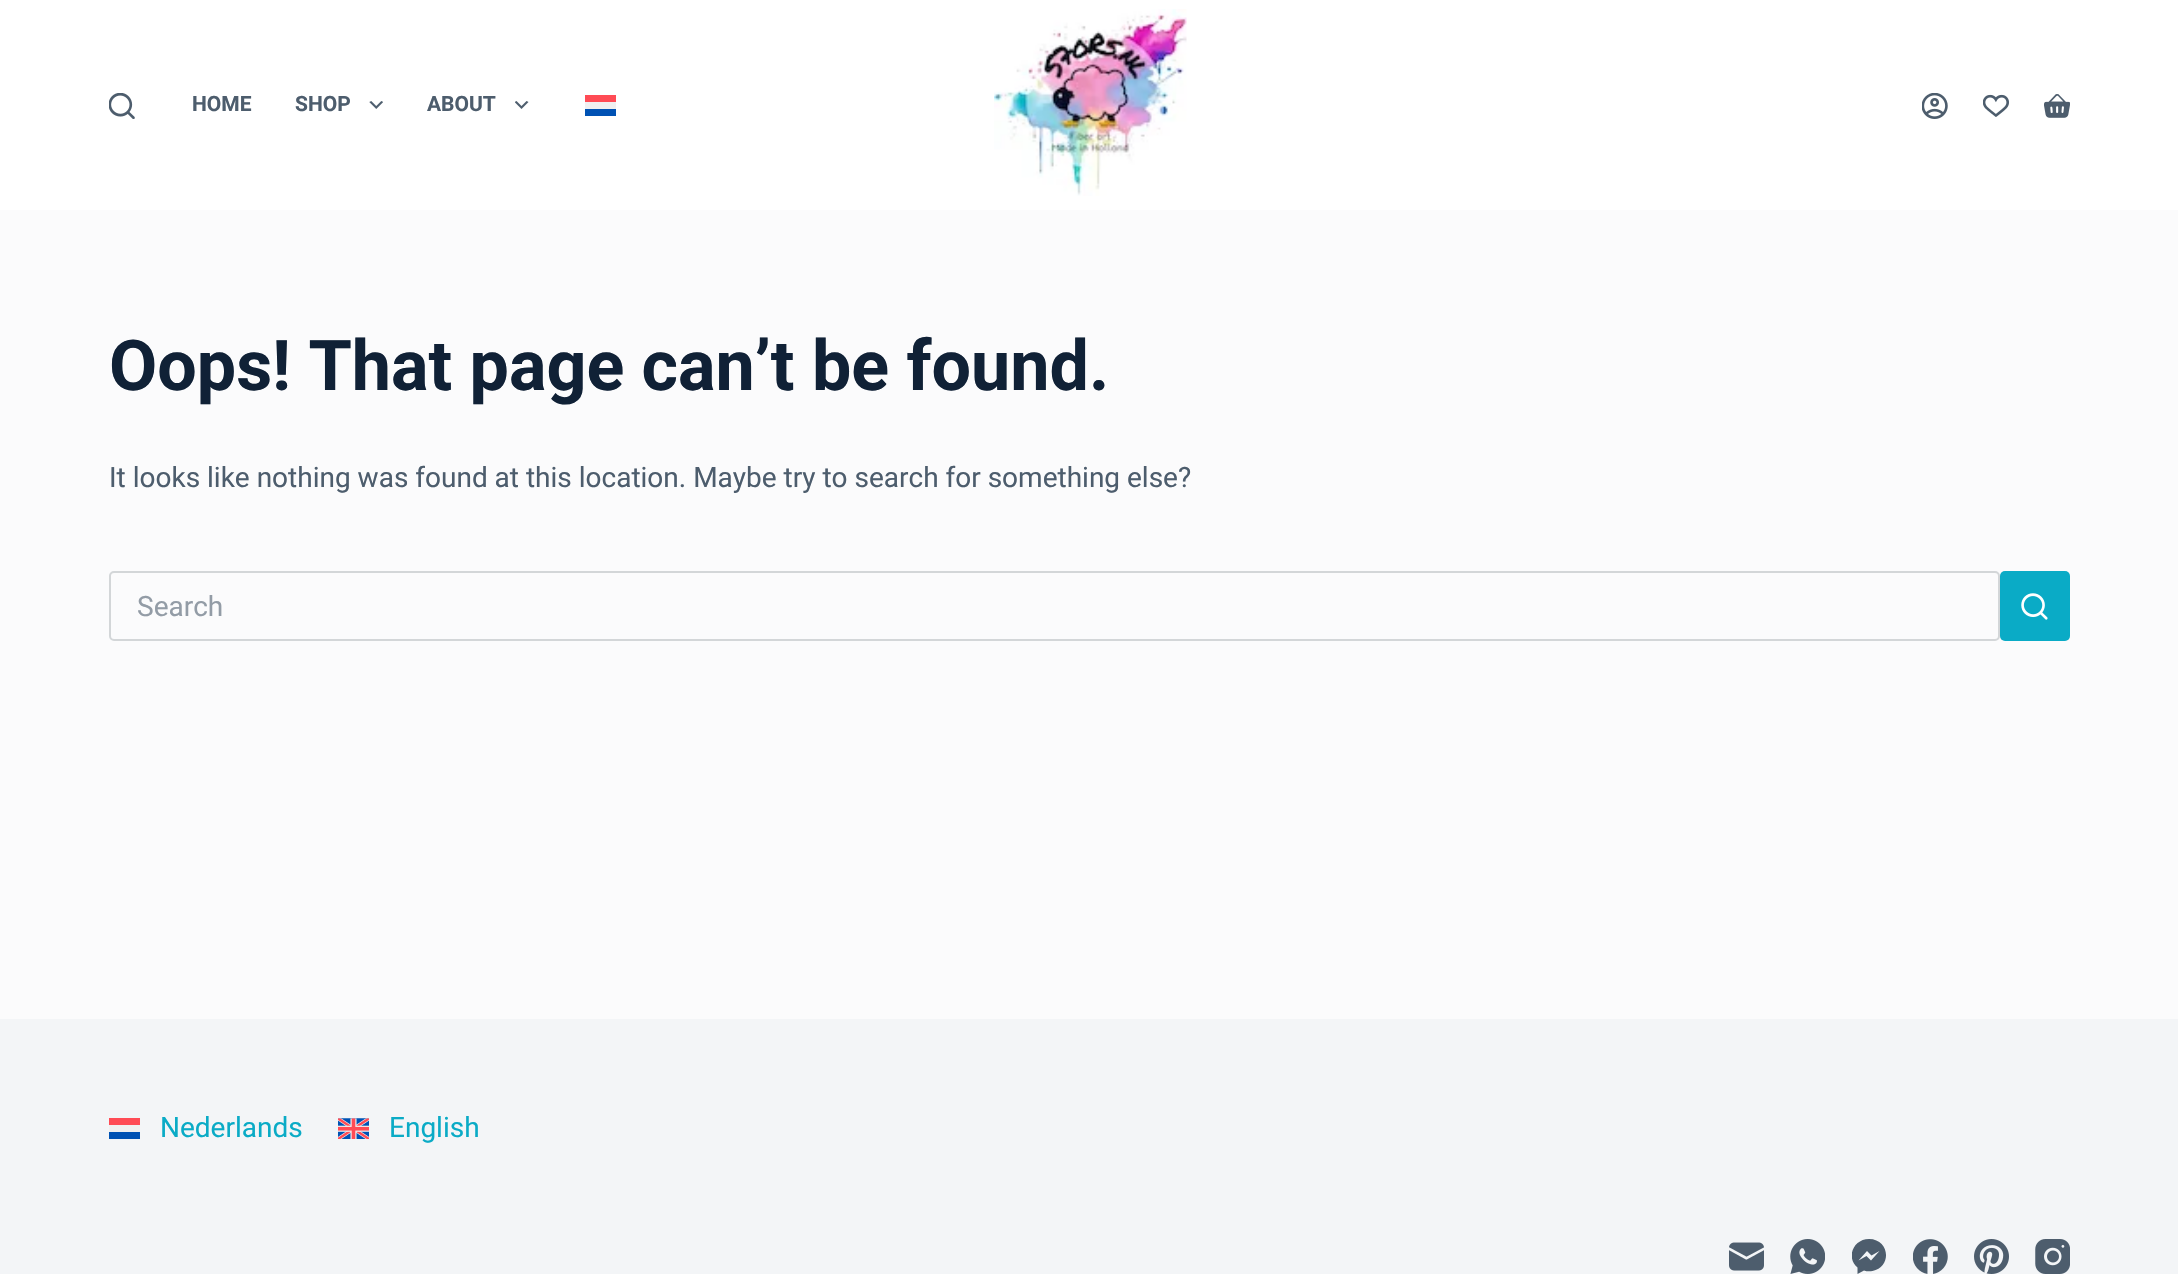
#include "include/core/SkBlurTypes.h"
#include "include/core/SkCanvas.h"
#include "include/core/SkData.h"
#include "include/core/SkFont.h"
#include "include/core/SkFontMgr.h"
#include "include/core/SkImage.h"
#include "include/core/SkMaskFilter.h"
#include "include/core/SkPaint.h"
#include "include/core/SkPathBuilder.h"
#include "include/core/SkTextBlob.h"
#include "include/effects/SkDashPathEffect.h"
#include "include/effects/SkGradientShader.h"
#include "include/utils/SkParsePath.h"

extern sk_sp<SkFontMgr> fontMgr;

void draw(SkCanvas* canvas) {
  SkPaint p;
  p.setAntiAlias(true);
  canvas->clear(SkColorSetRGB(251, 251, 252));
  p.setColor(SK_ColorWHITE);
  canvas->drawRect(SkRect::MakeLTRB(0, 0, 2178, 210), p);
  canvas->drawImageRect(SkImages::DeferredFromEncodedData(SkData::MakeFromFileName("images/1.png")), SkRect::MakeLTRB(109, 93, 135, 119), SkSamplingOptions());
  canvas->drawImageRect(SkImages::DeferredFromEncodedData(SkData::MakeFromFileName("images/2.png")), SkRect::MakeLTRB(369, 101, 383, 109), SkSamplingOptions());
  canvas->drawImageRect(SkImages::DeferredFromEncodedData(SkData::MakeFromFileName("images/3.png")), SkRect::MakeLTRB(515, 101, 529, 109), SkSamplingOptions());
  p.setColor(SkColorSetRGB(240, 240, 240));
  canvas->drawRect(SkRect::MakeLTRB(585, 102, 616, 109), p);
  p.setColor(SkColorSetRGB(0, 82, 180));
  canvas->drawRect(SkRect::MakeLTRB(585, 109, 616, 116), p);
  p.setColor(SkColorSetRGB(255, 75, 85));
  canvas->drawRect(SkRect::MakeLTRB(585, 95, 616, 102), p);
  canvas->drawImageRect(SkImages::DeferredFromEncodedData(SkData::MakeFromFileName("images/4.png")), SkRect::MakeLTRB(994, 9, 1187, 196), SkSamplingOptions());
  canvas->drawImageRect(SkImages::DeferredFromEncodedData(SkData::MakeFromFileName("images/5.png")), SkRect::MakeLTRB(1922, 93, 1948, 119), SkSamplingOptions());
  canvas->drawImageRect(SkImages::DeferredFromEncodedData(SkData::MakeFromFileName("images/6.png")), SkRect::MakeLTRB(1983, 94, 2009, 117), SkSamplingOptions());
  canvas->drawImageRect(SkImages::DeferredFromEncodedData(SkData::MakeFromFileName("images/7.png")), SkRect::MakeLTRB(2044, 94, 2070, 118), SkSamplingOptions());
  p.setStyle(SkPaint::kStroke_Style);
  p.setStrokeWidth(2);
  p.setColor(SkColorSetRGB(211, 214, 216));
  canvas->drawRoundRect(SkRect::MakeLTRB(110, 572, 1999, 640), 4, 4, p);
  p.setStyle(SkPaint::kFill_Style);
  p.setColor(SkColorSetRGB(10, 171, 198));
  canvas->drawRoundRect(SkRect::MakeLTRB(2000, 571, 2070, 641), 5, 5, p);
  canvas->drawImageRect(SkImages::DeferredFromEncodedData(SkData::MakeFromFileName("images/8.png")), SkRect::MakeLTRB(2021, 593, 2048, 620), SkSamplingOptions());
  p.setColor(SkColorSetRGB(243, 245, 247));
  canvas->drawRect(SkRect::MakeLTRB(0, 1019, 2178, 1274), p);
  p.setColor(SkColorSetRGB(240, 240, 240));
  canvas->drawRect(SkRect::MakeLTRB(109, 1125, 140, 1132), p);
  p.setColor(SkColorSetRGB(0, 82, 180));
  canvas->drawRect(SkRect::MakeLTRB(109, 1132, 140, 1139), p);
  p.setColor(SkColorSetRGB(255, 75, 85));
  canvas->drawRect(SkRect::MakeLTRB(109, 1118, 140, 1125), p);
  canvas->drawImageRect(SkImages::DeferredFromEncodedData(SkData::MakeFromFileName("images/9.png")), SkRect::MakeLTRB(338, 1118, 369, 1139), SkSamplingOptions());
  canvas->drawImageRect(SkImages::DeferredFromEncodedData(SkData::MakeFromFileName("images/10.png")), SkRect::MakeLTRB(1729, 1242, 1764, 1271), SkSamplingOptions());
  canvas->drawImageRect(SkImages::DeferredFromEncodedData(SkData::MakeFromFileName("images/11.png")), SkRect::MakeLTRB(1790, 1239, 1825, 1274), SkSamplingOptions());
  canvas->save();
  canvas->clipRect(SkRect::MakeLTRB(1852, 1239, 1887, 1274));
  p.setColor(SkColorSetRGB(77, 93, 109));
  canvas->drawPath(SkPathBuilder().moveTo(1869, 1239).cubicTo(1853.5f, 1239, 1845.5f, 1257.5f, 1857.5f, 1267.5f).lineTo(1857.5f, 1274).lineTo(1864, 1270.5f).cubicTo(1866.5f, 1271.5f, 1870, 1271.5f, 1872.5f, 1271).cubicTo(1892.5f, 1267, 1889.5f, 1239, 1869, 1239).close().moveTo(1871, 1260.5f).lineTo(1866.5f, 1256).lineTo(1858.5f, 1260.5f).lineTo(1867, 1251).lineTo(1871.5f, 1255.5f).lineTo(1879.5f, 1251).close().detach(), p);
  canvas->restore();
  canvas->drawImageRect(SkImages::DeferredFromEncodedData(SkData::MakeFromFileName("images/12.png")), SkRect::MakeLTRB(1913, 1239, 1948, 1274), SkSamplingOptions());
  canvas->drawImageRect(SkImages::DeferredFromEncodedData(SkData::MakeFromFileName("images/13.png")), SkRect::MakeLTRB(1974, 1239, 2009, 1274), SkSamplingOptions());
  canvas->drawImageRect(SkImages::DeferredFromEncodedData(SkData::MakeFromFileName("images/14.png")), SkRect::MakeLTRB(2035, 1239, 2070, 1274), SkSamplingOptions());
  SkFont font1(fontMgr->matchFamilyStyle("Roboto", SkFontStyle::Bold()), 21);
  font1.setSubpixel(true);
  canvas->drawString("HOME", 192, 111, font1, p);
  canvas->drawString("SHOP", 295, 111, font1, p);
  canvas->drawString("ABOUT", 427, 111, font1, p);
  SkFont font2(fontMgr->matchFamilyStyle("Roboto", SkFontStyle::Bold()), 70);
  font2.setSubpixel(true);
  p.setColor(SkColorSetRGB(16, 33, 54));
  canvas->drawString("Oops! That page can’t be found.", 109, 390, font2, p);
  SkFont font3(fontMgr->matchFamilyStyle("Roboto", SkFontStyle::Normal()), 28);
  font3.setSubpixel(true);
  p.setColor(SkColorSetRGB(77, 93, 109));
  canvas->drawString("It looks like nothing was found at this location. Maybe try to search for something else?", 109, 487, font3, p);
  p.setColor(SkColorSetRGB(147, 156, 166));
  canvas->drawString("Search", 137, 616, font3, p);
  p.setColor(SkColorSetRGB(10, 171, 198));
  canvas->drawString("Nederlands", 160, 1137, font3, p);
  canvas->drawString("English", 389, 1137, font3, p);
}
